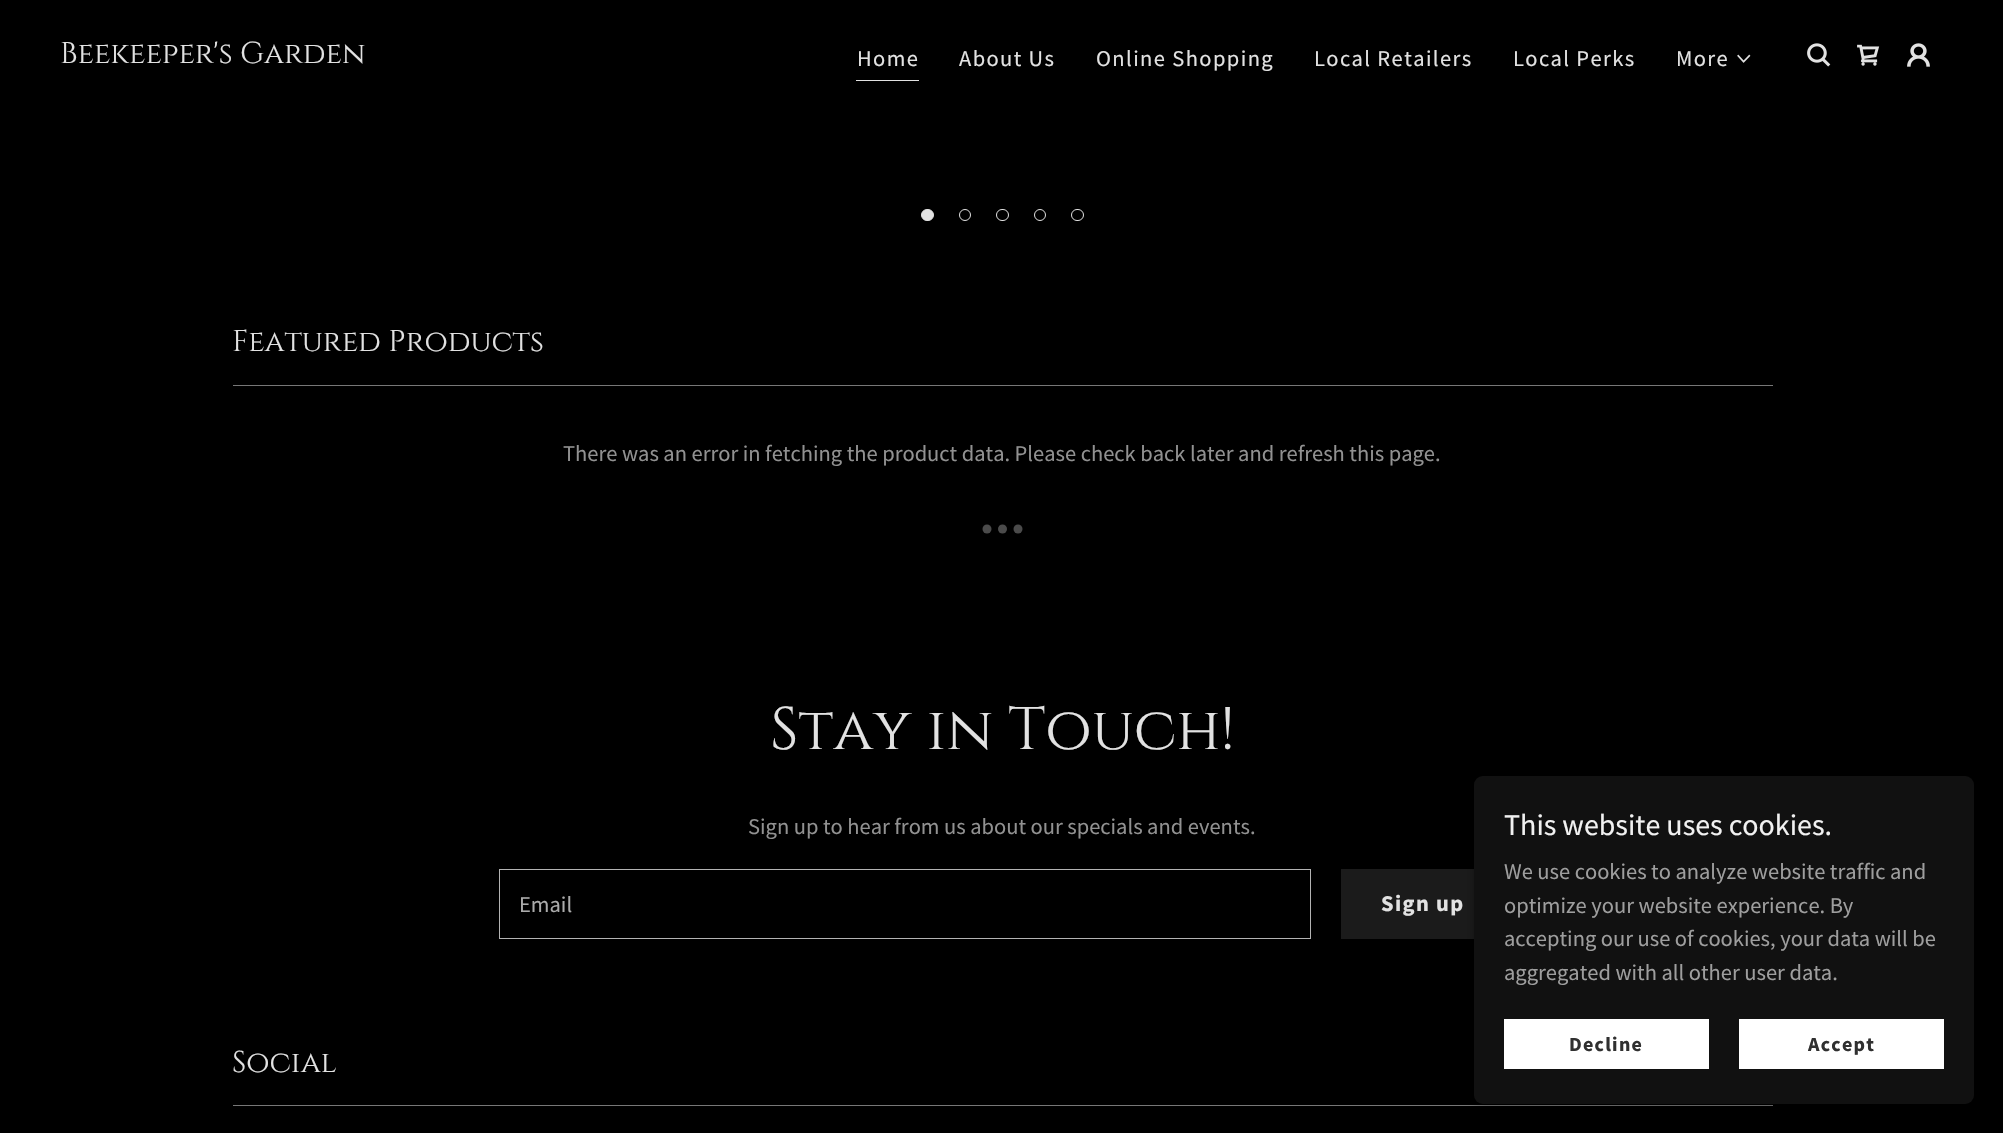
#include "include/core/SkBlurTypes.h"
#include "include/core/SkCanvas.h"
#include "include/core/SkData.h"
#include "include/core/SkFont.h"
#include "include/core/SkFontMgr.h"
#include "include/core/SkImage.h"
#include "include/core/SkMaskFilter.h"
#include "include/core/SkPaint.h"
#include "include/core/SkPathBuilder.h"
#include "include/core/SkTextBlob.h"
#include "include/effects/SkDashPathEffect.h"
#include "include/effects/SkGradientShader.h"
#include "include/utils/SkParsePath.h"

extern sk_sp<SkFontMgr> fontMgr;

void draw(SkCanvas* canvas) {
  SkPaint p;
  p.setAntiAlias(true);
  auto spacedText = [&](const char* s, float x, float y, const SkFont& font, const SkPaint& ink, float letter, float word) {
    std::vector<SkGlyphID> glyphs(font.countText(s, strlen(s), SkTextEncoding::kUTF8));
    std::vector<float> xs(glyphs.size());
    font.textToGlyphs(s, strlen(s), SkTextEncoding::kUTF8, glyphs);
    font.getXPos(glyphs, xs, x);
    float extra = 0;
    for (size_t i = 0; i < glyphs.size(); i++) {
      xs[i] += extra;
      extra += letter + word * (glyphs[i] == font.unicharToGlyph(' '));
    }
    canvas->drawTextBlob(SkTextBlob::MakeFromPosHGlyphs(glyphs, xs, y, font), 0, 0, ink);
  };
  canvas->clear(SK_ColorBLACK);
  p.setColor(SkColorSetRGB(226, 226, 226));
  canvas->drawRect(SkRect::MakeLTRB(856, 80, 919, 81), p);
  canvas->drawImageRect(SkImages::DeferredFromEncodedData(SkData::MakeFromFileName("images/1.png")), SkRect::MakeLTRB(1737, 54, 1751, 63), SkSamplingOptions());
  canvas->drawImageRect(SkImages::DeferredFromEncodedData(SkData::MakeFromFileName("images/2.png")), SkRect::MakeLTRB(1807, 43, 1831, 67), SkSamplingOptions());
  canvas->drawImageRect(SkImages::DeferredFromEncodedData(SkData::MakeFromFileName("images/3.png")), SkRect::MakeLTRB(1857, 44, 1880, 66), SkSamplingOptions());
  canvas->drawImageRect(SkImages::DeferredFromEncodedData(SkData::MakeFromFileName("images/4.png")), SkRect::MakeLTRB(1907, 43, 1930, 67), SkSamplingOptions());
  canvas->drawRoundRect(SkRect::MakeLTRB(921.5f, 209.5f, 933.5f, 220.5f), 5.5f, 5.5f, p);
  p.setStyle(SkPaint::kStroke_Style);
  p.setStrokeWidth(1);
  canvas->drawRoundRect(SkRect::MakeLTRB(921.5f, 209.5f, 933.5f, 220.5f), 5.5f, 5.5f, p);
  canvas->drawCircle(965, 215, 5.5f, p);
  canvas->drawRoundRect(SkRect::MakeLTRB(996.5f, 209.5f, 1008.5f, 220.5f), 5.5f, 5.5f, p);
  canvas->drawCircle(1040, 215, 5.5f, p);
  canvas->drawRoundRect(SkRect::MakeLTRB(1071.5f, 209.5f, 1083.5f, 220.5f), 5.5f, 5.5f, p);
  p.setStyle(SkPaint::kFill_Style);
  p.setColor(SkColorSetRGB(119, 119, 119));
  canvas->drawRect(SkRect::MakeLTRB(233, 385, 1773, 386), p);
  p.setColor(SkColorSetRGB(75, 75, 75));
  canvas->drawCircle(987, 529, 4.5f, p);
  canvas->drawCircle(1002.5f, 529, 4.5f, p);
  canvas->drawCircle(1018, 529, 4.5f, p);
  p.setStyle(SkPaint::kStroke_Style);
  p.setColor(SkColorSetRGB(179, 179, 179));
  canvas->drawRect(SkRect::MakeLTRB(499.5f, 869.5f, 1310.5f, 938.5f), p);
  p.setStyle(SkPaint::kFill_Style);
  p.setColor(SkColorSetRGB(27, 27, 27));
  canvas->drawRect(SkRect::MakeLTRB(1341, 869, 1474, 939), p);
  p.setColor(SkColorSetRGB(119, 119, 119));
  canvas->drawRect(SkRect::MakeLTRB(233, 1105, 1773, 1106), p);
  p.setColor(SkColorSetARGB(77, 0, 0, 0));
  p.setMaskFilter(SkMaskFilter::MakeBlur(kNormal_SkBlurStyle, 4));
  canvas->drawRoundRect(SkRect::MakeLTRB(1474, 779, 1974, 1106), 9, 9, p);
  p.setMaskFilter(nullptr);
  p.setColor(SkColorSetRGB(17, 17, 17));
  canvas->drawRoundRect(SkRect::MakeLTRB(1474, 776, 1974, 1104), 9, 9, p);
  p.setColor(SK_ColorWHITE);
  canvas->drawRect(SkRect::MakeLTRB(1504, 1019, 1709, 1069), p);
  canvas->drawRect(SkRect::MakeLTRB(1739, 1019, 1944, 1069), p);
  SkFont font1(fontMgr->matchFamilyStyle("Cinzel", SkFontStyle::Normal()), 30);
  font1.setSubpixel(true);
  p.setColor(SkColorSetRGB(226, 226, 226));
  canvas->drawString("Beekeeper's Garden", 60, 63, font1, p);
  SkFont font2(fontMgr->matchFamilyStyle("Source Sans Pro", SkFontStyle::Normal()), 22.5f);
  font2.setSubpixel(true);
  spacedText("Home", 857, 66, font2, p, 1.4f, 0);
  spacedText("About Us", 959, 66, font2, p, 1.4f, 0);
  spacedText("Online Shopping", 1096, 66, font2, p, 1.4f, 0);
  spacedText("Local Retailers", 1314, 66, font2, p, 1.4f, 0);
  spacedText("Local Perks", 1513, 66, font2, p, 1.4f, 0);
  spacedText("More", 1676, 66, font2, p, 1.4f, 0);
  canvas->drawString("Featured Products", 232, 351, font1, p);
  p.setColor(SkColorSetRGB(145, 145, 145));
  canvas->drawString("There was an error in fetching the product data. Please check back later and refresh this page.", 563, 461, font2, p);
  SkFont font3(fontMgr->matchFamilyStyle("Cinzel", SkFontStyle::Normal()), 60);
  font3.setSubpixel(true);
  p.setColor(SkColorSetRGB(226, 226, 226));
  canvas->drawString("Stay in Touch!", 770, 749, font3, p);
  p.setColor(SkColorSetRGB(145, 145, 145));
  canvas->drawString("Sign up to hear from us about our specials and events.", 748, 834, font2, p);
  p.setColor(SkColorSetRGB(171, 171, 171));
  canvas->drawString("Email", 519, 912, font2, p);
  SkFont font4(fontMgr->matchFamilyStyle("Source Sans Pro", SkFontStyle::Bold()), 22.5f);
  font4.setSubpixel(true);
  p.setColor(SkColorSetRGB(226, 226, 226));
  spacedText("Sign up", 1381, 911, font4, p, 1.4f, 0);
  SkFont font5(fontMgr->matchFamilyStyle("Source Sans Pro", SkFontStyle::Normal()), 30);
  font5.setSubpixel(true);
  p.setColor(SkColorSetRGB(241, 241, 241));
  canvas->drawString("This website uses cookies.", 1504, 835, font5, p);
  p.setColor(SkColorSetRGB(158, 158, 158));
  canvas->drawString("We use cookies to analyze website traffic and", 1504, 879, font2, p);
  canvas->drawString("optimize your website experience. By", 1504, 913, font2, p);
  canvas->drawString("accepting our use of cookies, your data will be", 1504, 946, font2, p);
  canvas->drawString("aggregated with all other user data.", 1504, 980, font2, p);
  SkFont font6(fontMgr->matchFamilyStyle("Source Sans Pro", SkFontStyle::Bold()), 20);
  font6.setSubpixel(true);
  p.setColor(SkColorSetRGB(48, 48, 48));
  spacedText("Decline", 1569, 1051, font6, p, 1.25f, 0);
  spacedText("Accept", 1808, 1051, font6, p, 1.25f, 0);
  p.setColor(SkColorSetRGB(226, 226, 226));
  canvas->drawString("Social", 232, 1072, font1, p);
}
